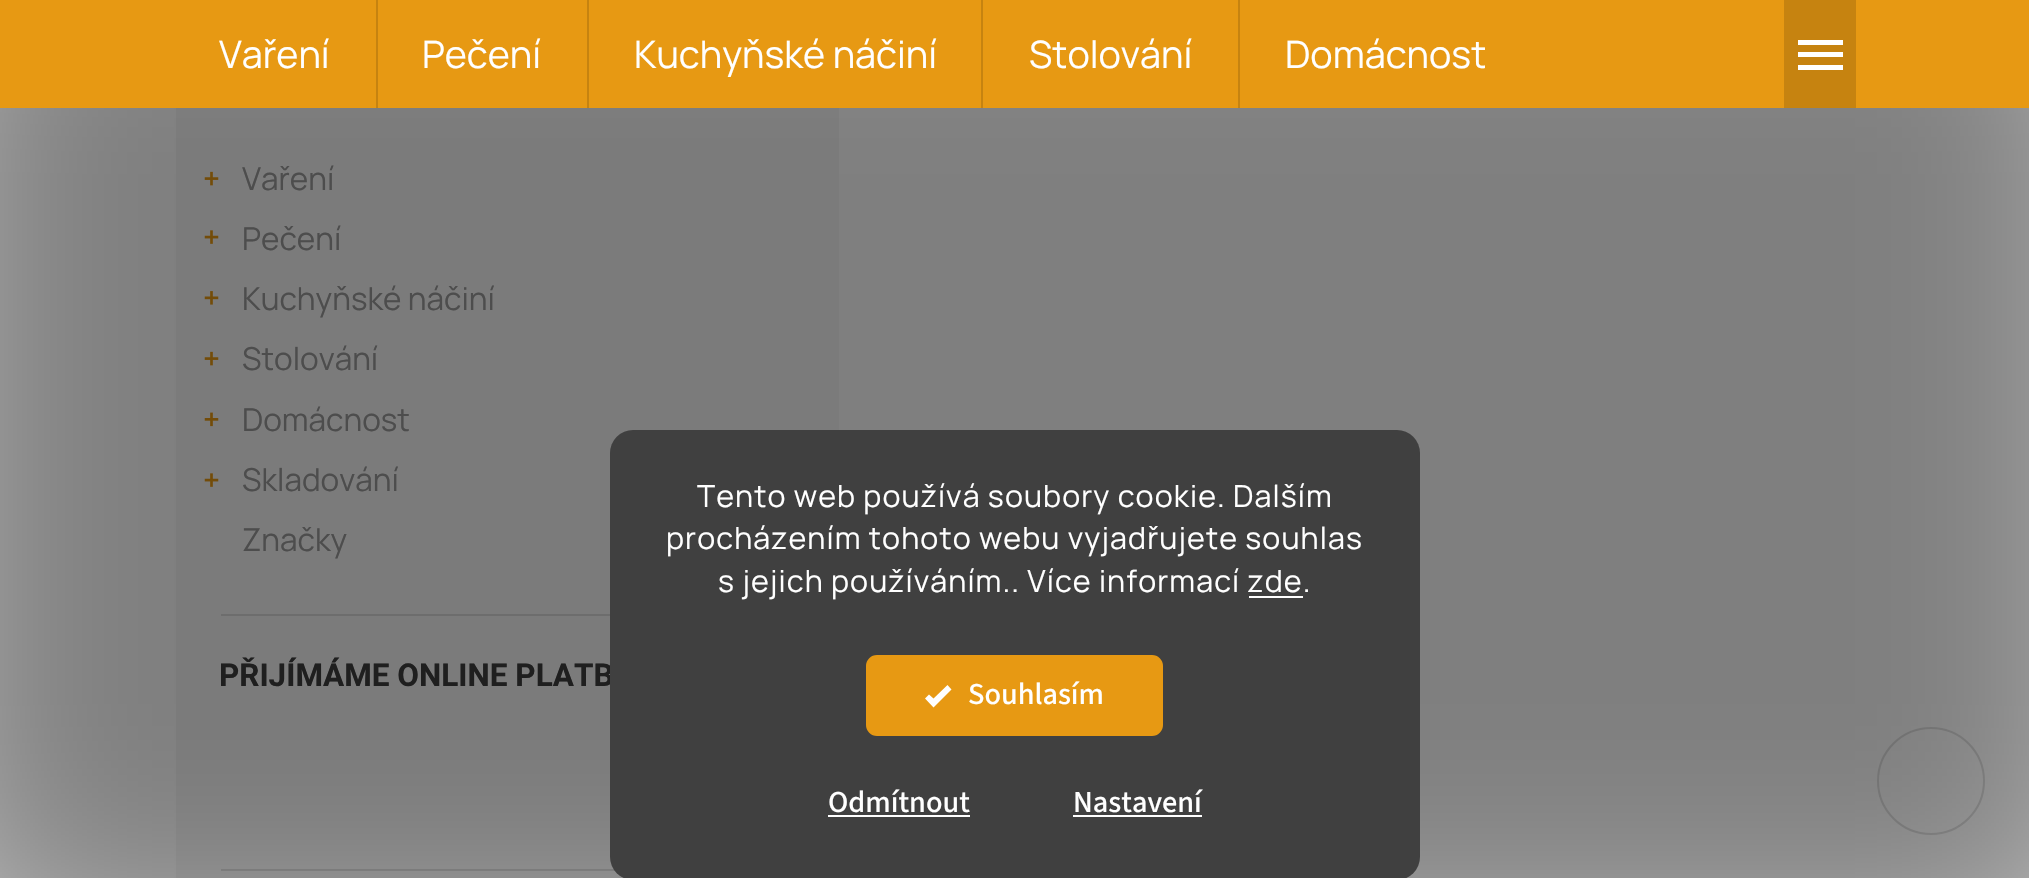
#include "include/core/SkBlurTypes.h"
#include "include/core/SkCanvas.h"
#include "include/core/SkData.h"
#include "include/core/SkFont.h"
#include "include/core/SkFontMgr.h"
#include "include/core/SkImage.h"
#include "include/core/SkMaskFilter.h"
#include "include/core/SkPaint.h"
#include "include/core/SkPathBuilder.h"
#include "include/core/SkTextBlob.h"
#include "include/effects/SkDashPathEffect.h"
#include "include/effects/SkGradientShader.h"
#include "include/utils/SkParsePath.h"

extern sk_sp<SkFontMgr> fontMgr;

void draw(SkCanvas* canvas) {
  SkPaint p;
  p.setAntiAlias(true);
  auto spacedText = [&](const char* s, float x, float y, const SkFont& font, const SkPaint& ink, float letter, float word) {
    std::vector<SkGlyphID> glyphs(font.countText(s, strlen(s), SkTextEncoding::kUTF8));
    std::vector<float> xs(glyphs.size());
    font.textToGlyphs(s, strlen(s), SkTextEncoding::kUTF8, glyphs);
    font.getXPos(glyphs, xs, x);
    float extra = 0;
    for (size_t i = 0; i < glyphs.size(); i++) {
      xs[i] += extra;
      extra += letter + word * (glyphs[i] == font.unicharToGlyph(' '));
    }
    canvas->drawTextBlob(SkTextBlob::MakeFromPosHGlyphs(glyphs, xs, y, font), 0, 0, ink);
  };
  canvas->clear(SK_ColorWHITE);
  p.setColor(SkColorSetRGB(246, 246, 246));
  canvas->drawRect(SkRect::MakeLTRB(176, 108, 839, 878), p);
  p.setColor(SkColorSetRGB(218, 218, 218));
  canvas->drawRect(SkRect::MakeLTRB(221, 614, 610, 616), p);
  canvas->drawImageRect(SkImages::DeferredFromEncodedData(SkData::MakeFromFileName("images/1.png")), SkRect::MakeLTRB(204, 171, 219, 186), SkSamplingOptions());
  canvas->drawImageRect(SkImages::DeferredFromEncodedData(SkData::MakeFromFileName("images/2.png")), SkRect::MakeLTRB(204, 230, 219, 244), SkSamplingOptions());
  canvas->drawImageRect(SkImages::DeferredFromEncodedData(SkData::MakeFromFileName("images/3.png")), SkRect::MakeLTRB(204, 291, 219, 305), SkSamplingOptions());
  canvas->drawImageRect(SkImages::DeferredFromEncodedData(SkData::MakeFromFileName("images/1.png")), SkRect::MakeLTRB(204, 351, 219, 366), SkSamplingOptions());
  canvas->drawImageRect(SkImages::DeferredFromEncodedData(SkData::MakeFromFileName("images/4.png")), SkRect::MakeLTRB(204, 412, 219, 427), SkSamplingOptions());
  canvas->drawImageRect(SkImages::DeferredFromEncodedData(SkData::MakeFromFileName("images/2.png")), SkRect::MakeLTRB(204, 473, 219, 487), SkSamplingOptions());
  canvas->drawRect(SkRect::MakeLTRB(221, 869, 615, 871), p);
  p.setStyle(SkPaint::kStroke_Style);
  p.setStrokeWidth(2);
  p.setColor(SkColorSetRGB(224, 224, 224));
  canvas->drawCircle(1931, 781, 53, p);
  p.setStyle(SkPaint::kFill_Style);
  p.setColor(SkColorSetARGB(128, 0, 0, 0));
  p.setMaskFilter(SkMaskFilter::MakeBlur(kNormal_SkBlurStyle, 180));
  canvas->drawRoundRect(SkRect::MakeLTRB(-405, -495, 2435, 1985), 1037, 1037, p);
  p.setMaskFilter(nullptr);
  p.setColor(SkColorSetRGB(231, 153, 19));
  canvas->drawRect(SkRect::MakeLTRB(0, 0, 2029, 108), p);
  p.setColor(SkColorSetRGB(198, 131, 16));
  canvas->drawRect(SkRect::MakeLTRB(376, 0, 378, 108), p);
  canvas->drawRect(SkRect::MakeLTRB(587, 0, 589, 108), p);
  canvas->drawRect(SkRect::MakeLTRB(981, 0, 983, 108), p);
  canvas->drawRect(SkRect::MakeLTRB(1238, 0, 1240, 108), p);
  canvas->drawRect(SkRect::MakeLTRB(1784, 0, 1856, 108), p);
  p.setColor(SK_ColorWHITE);
  canvas->drawPath(SkPathBuilder().moveTo(1798, 70).lineTo(1843, 70).lineTo(1843, 65).lineTo(1798, 65).close().moveTo(1798, 57).lineTo(1843, 57).lineTo(1843, 52).lineTo(1798, 52).close().moveTo(1798, 40).lineTo(1798, 45).lineTo(1843, 45).lineTo(1843, 40).close().detach(), p);
  SkFont font1(fontMgr->matchFamilyStyle("Manrope", SkFontStyle::Normal()), 37.75f);
  font1.setSubpixel(true);
  canvas->drawString("Vaření", 219, 68, font1, p);
  canvas->drawString("Pečení", 422, 68, font1, p);
  canvas->drawString("Kuchyňské náčiní", 634, 68, font1, p);
  canvas->drawString("Stolování", 1029, 68, font1, p);
  canvas->drawString("Domácnost", 1285, 68, font1, p);
  SkFont font2(fontMgr->matchFamilyStyle("Manrope", SkFontStyle::Normal()), 31.5f);
  font2.setSubpixel(true);
  p.setColor(SkColorSetRGB(77, 77, 77));
  canvas->drawString("Vaření", 242, 190, font2, p);
  canvas->drawString("Pečení", 242, 250, font2, p);
  canvas->drawString("Kuchyňské náčiní", 242, 310, font2, p);
  canvas->drawString("Stolování", 242, 370, font2, p);
  canvas->drawString("Domácnost", 242, 431, font2, p);
  canvas->drawString("Skladování", 242, 491, font2, p);
  canvas->drawString("Značky", 242, 551, font2, p);
  SkFont font3(fontMgr->matchFamilyStyle("Roboto", SkFontStyle::Bold()), 31.5f);
  font3.setSubpixel(true);
  p.setColor(SkColorSetRGB(31, 31, 31));
  canvas->drawString("PŘIJÍMÁME ONLINE PLATB", 219, 686, font3, p);
  p.setColor(SkColorSetRGB(64, 64, 64));
  canvas->drawRoundRect(SkRect::MakeLTRB(610, 430, 1420, 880), 23, 23, p);
  SkFont font4(fontMgr->matchFamilyStyle("Manrope", SkFontStyle::Normal()), 30.4f);
  font4.setSubpixel(true);
  p.setColor(SK_ColorWHITE);
  spacedText("Tento web používá soubory cookie. Dalším", 697, 507, font4, p, 1.1f, 0);
  spacedText("procházením tohoto webu vyjadřujete souhlas", 666, 549, font4, p, 1.1f, 0);
  spacedText("s jejich používáním.. Více informací zde.", 718, 592, font4, p, 1.1f, 0);
  canvas->drawRect(SkRect::MakeLTRB(1249, 596, 1303, 598), p);
  p.setColor(SkColorSetRGB(231, 153, 19));
  canvas->drawRoundRect(SkRect::MakeLTRB(867, 656, 1162, 735), 10, 10, p);
  p.setStyle(SkPaint::kStroke_Style);
  canvas->drawRoundRect(SkRect::MakeLTRB(867, 656, 1162, 735), 10, 10, p);
  p.setStyle(SkPaint::kFill_Style);
  p.setColor(SK_ColorWHITE);
  canvas->drawPath(SkPathBuilder().moveTo(947.5f, 685).lineTo(933.5f, 698.5f).lineTo(929, 694.5f).lineTo(925, 698.5f).lineTo(933.5f, 707.5f).lineTo(951.5f, 689.5f).close().detach(), p);
  SkFont font5(fontMgr->matchFamilyStyle("Source Sans 3", SkFontStyle(500, SkFontStyle::kNormal_Width, SkFontStyle::kUpright_Slant)), 30.4f);
  font5.setSubpixel(true);
  canvas->drawString("Souhlasím", 968, 704, font5, p);
  canvas->drawString("Odmítnout", 828, 812, font5, p);
  canvas->drawRect(SkRect::MakeLTRB(828, 815, 970, 817), p);
  canvas->drawString("Nastavení", 1073, 812, font5, p);
  canvas->drawRect(SkRect::MakeLTRB(1073, 815, 1202, 817), p);
}
